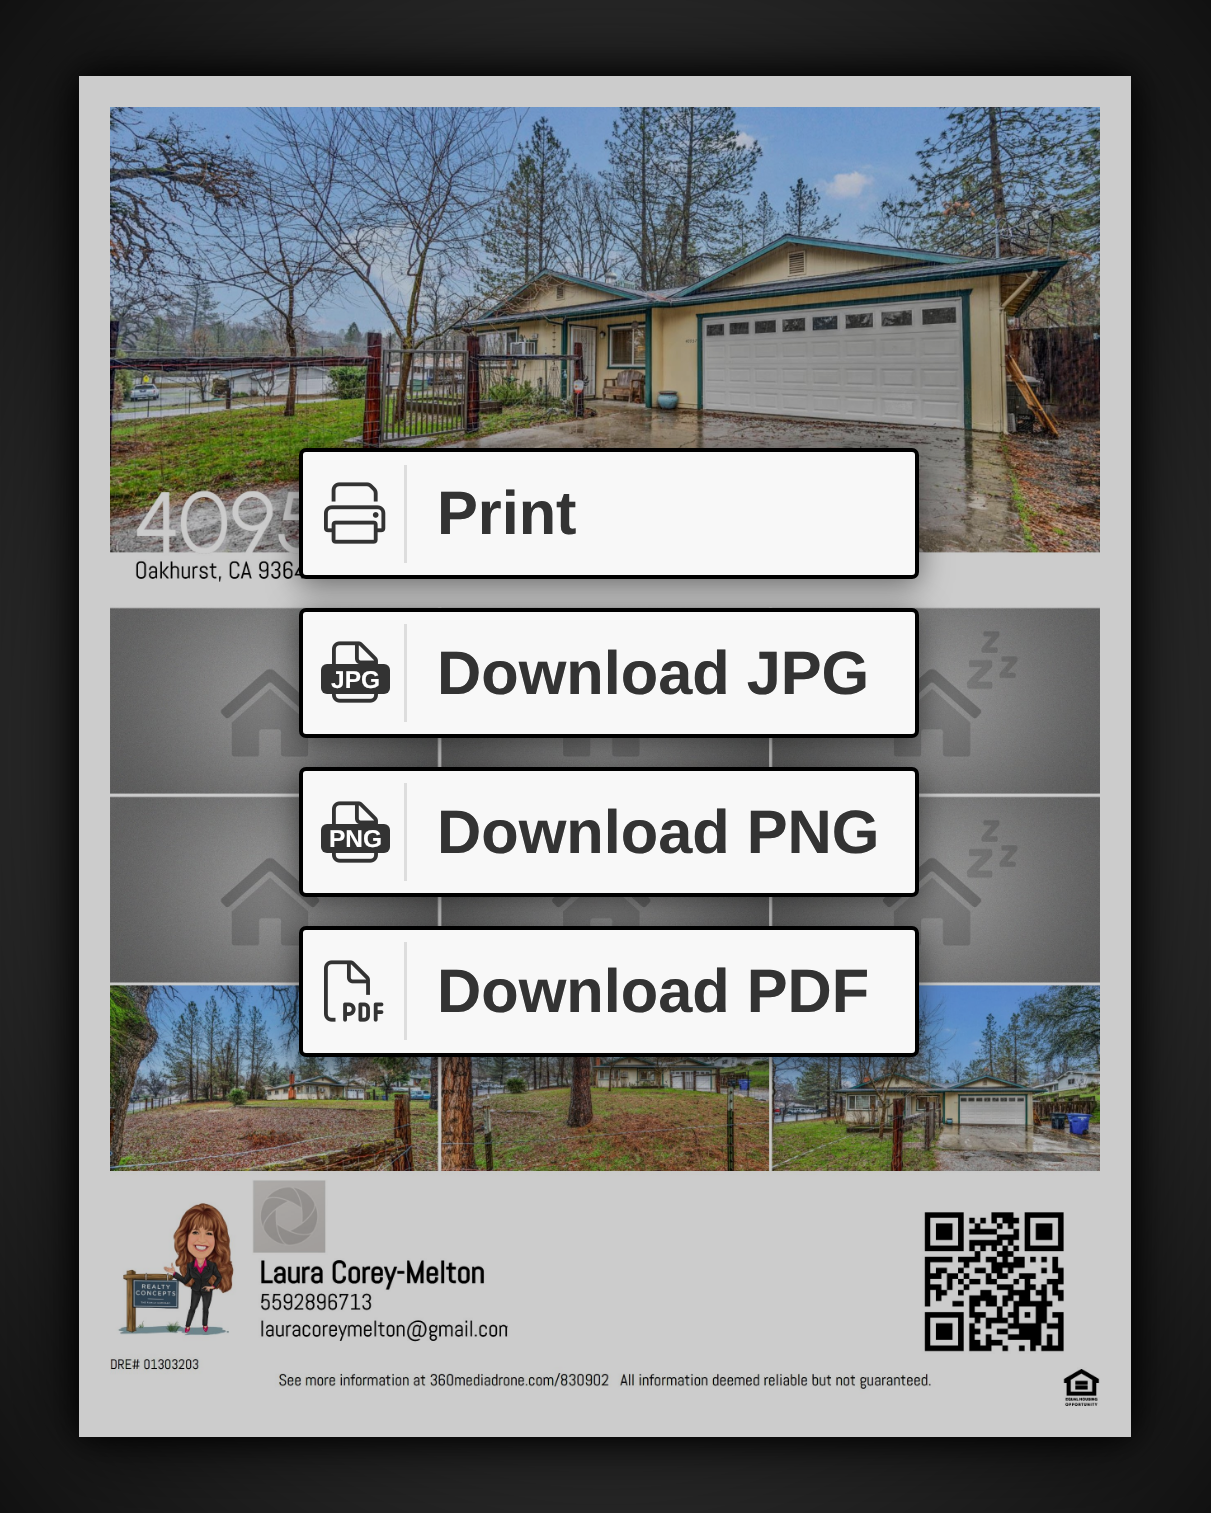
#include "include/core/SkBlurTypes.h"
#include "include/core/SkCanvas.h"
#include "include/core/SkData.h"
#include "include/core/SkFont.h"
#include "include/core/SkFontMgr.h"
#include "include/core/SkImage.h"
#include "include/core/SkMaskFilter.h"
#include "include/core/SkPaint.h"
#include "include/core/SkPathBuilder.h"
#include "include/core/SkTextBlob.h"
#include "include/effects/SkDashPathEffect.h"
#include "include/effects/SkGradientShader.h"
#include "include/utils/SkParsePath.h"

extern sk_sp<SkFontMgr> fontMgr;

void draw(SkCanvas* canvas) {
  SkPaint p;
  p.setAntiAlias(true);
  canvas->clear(SK_ColorWHITE);
  {
    const SkColor colors[] = {SkColorSetRGB(136, 136, 136), SkColorSetRGB(85, 85, 85), SkColorSetRGB(51, 51, 51), SkColorSetRGB(34, 34, 34), SkColorSetRGB(17, 17, 17)};
    const float stops[] = {0, 0.25f, 0.5f, 0.75f, 1};
    SkMatrix m = SkMatrix::Translate(606, 757).preScale(856, 1070);
    p.setShader(SkGradientShader::MakeRadial({0, 0}, 1, colors, stops, 5, SkTileMode::kClamp, 0, &m));
    p.setAlpha(255);
  }
  canvas->drawRect(SkRect::MakeLTRB(0, 0, 1211, 1513), p);
  p.setShader(nullptr);
  p.setColor(SK_ColorBLACK);
  p.setMaskFilter(SkMaskFilter::MakeBlur(kNormal_SkBlurStyle, 40));
  canvas->drawRect(SkRect::MakeLTRB(79, 76, 1131, 1437), p);
  p.setMaskFilter(nullptr);
  p.setMaskFilter(SkMaskFilter::MakeBlur(kNormal_SkBlurStyle, 15));
  canvas->drawRect(SkRect::MakeLTRB(79, 76, 1131, 1437), p);
  p.setMaskFilter(nullptr);
  p.setColor(SkColorSetRGB(204, 204, 204));
  canvas->drawRect(SkRect::MakeLTRB(79, 76, 1131, 1437), p);
  canvas->drawImageRect(SkImages::DeferredFromEncodedData(SkData::MakeFromFileName("images/1.png")), SkRect::MakeLTRB(110, 107, 1100, 1406), SkSamplingOptions());
  p.setColor(SkColorSetARGB(128, 0, 0, 0));
  p.setMaskFilter(SkMaskFilter::MakeBlur(kNormal_SkBlurStyle, 15.5f));
  canvas->drawRoundRect(SkRect::MakeLTRB(299, 454, 919, 585), 7, 7, p);
  p.setMaskFilter(nullptr);
  p.setColor(SkColorSetRGB(248, 248, 248));
  canvas->drawRoundRect(SkRect::MakeLTRB(301, 450, 917, 577), 5, 5, p);
  p.setStyle(SkPaint::kStroke_Style);
  p.setStrokeWidth(4);
  p.setColor(SK_ColorBLACK);
  canvas->drawRoundRect(SkRect::MakeLTRB(301, 450, 917, 577), 5, 5, p);
  p.setStyle(SkPaint::kFill_Style);
  p.setColor(SkColorSetRGB(221, 221, 221));
  canvas->drawRect(SkRect::MakeLTRB(404, 465, 407, 563), p);
  canvas->drawImageRect(SkImages::DeferredFromEncodedData(SkData::MakeFromFileName("images/2.png")), SkRect::MakeLTRB(324, 482, 386, 544), SkSamplingOptions());
  p.setColor(SkColorSetARGB(128, 0, 0, 0));
  p.setMaskFilter(SkMaskFilter::MakeBlur(kNormal_SkBlurStyle, 15.5f));
  canvas->drawRoundRect(SkRect::MakeLTRB(299, 614, 919, 744), 7, 7, p);
  p.setMaskFilter(nullptr);
  p.setColor(SkColorSetRGB(248, 248, 248));
  canvas->drawRoundRect(SkRect::MakeLTRB(301, 610, 917, 736), 5, 5, p);
  p.setStyle(SkPaint::kStroke_Style);
  p.setColor(SK_ColorBLACK);
  canvas->drawRoundRect(SkRect::MakeLTRB(301, 610, 917, 736), 5, 5, p);
  p.setStyle(SkPaint::kFill_Style);
  p.setColor(SkColorSetRGB(221, 221, 221));
  canvas->drawRect(SkRect::MakeLTRB(404, 624, 407, 722), p);
  canvas->drawImageRect(SkImages::DeferredFromEncodedData(SkData::MakeFromFileName("images/3.png")), SkRect::MakeLTRB(332, 641, 378, 703), SkSamplingOptions());
  p.setColor(SkColorSetRGB(51, 51, 51));
  canvas->drawRoundRect(SkRect::MakeLTRB(321, 664, 390, 694), 6, 6, p);
  p.setColor(SkColorSetARGB(128, 0, 0, 0));
  p.setMaskFilter(SkMaskFilter::MakeBlur(kNormal_SkBlurStyle, 15.5f));
  canvas->drawRoundRect(SkRect::MakeLTRB(299, 773, 919, 903), 7, 7, p);
  p.setMaskFilter(nullptr);
  p.setColor(SkColorSetRGB(248, 248, 248));
  canvas->drawRoundRect(SkRect::MakeLTRB(301, 769, 917, 895), 5, 5, p);
  p.setStyle(SkPaint::kStroke_Style);
  p.setColor(SK_ColorBLACK);
  canvas->drawRoundRect(SkRect::MakeLTRB(301, 769, 917, 895), 5, 5, p);
  p.setStyle(SkPaint::kFill_Style);
  p.setColor(SkColorSetRGB(221, 221, 221));
  canvas->drawRect(SkRect::MakeLTRB(404, 783, 407, 881), p);
  canvas->drawImageRect(SkImages::DeferredFromEncodedData(SkData::MakeFromFileName("images/3.png")), SkRect::MakeLTRB(332, 801, 378, 863), SkSamplingOptions());
  p.setColor(SkColorSetRGB(51, 51, 51));
  canvas->drawRoundRect(SkRect::MakeLTRB(321, 824, 390, 853), 6, 6, p);
  p.setColor(SkColorSetARGB(128, 0, 0, 0));
  p.setMaskFilter(SkMaskFilter::MakeBlur(kNormal_SkBlurStyle, 15.5f));
  canvas->drawRoundRect(SkRect::MakeLTRB(299, 932, 919, 1063), 7, 7, p);
  p.setMaskFilter(nullptr);
  p.setColor(SkColorSetRGB(248, 248, 248));
  canvas->drawRoundRect(SkRect::MakeLTRB(301, 928, 917, 1055), 5, 5, p);
  p.setStyle(SkPaint::kStroke_Style);
  p.setColor(SK_ColorBLACK);
  canvas->drawRoundRect(SkRect::MakeLTRB(301, 928, 917, 1055), 5, 5, p);
  p.setStyle(SkPaint::kFill_Style);
  p.setColor(SkColorSetRGB(221, 221, 221));
  canvas->drawRect(SkRect::MakeLTRB(404, 942, 407, 1040), p);
  canvas->drawImageRect(SkImages::DeferredFromEncodedData(SkData::MakeFromFileName("images/4.png")), SkRect::MakeLTRB(324, 960, 384, 1022), SkSamplingOptions());
  SkFont font1(fontMgr->matchFamilyStyle("Liberation Sans", SkFontStyle::Bold()), 61.25f);
  font1.setSubpixel(true);
  p.setColor(SkColorSetRGB(51, 51, 51));
  canvas->drawString("Print", 437, 534, font1, p);
  SkFont font2(fontMgr->matchFamilyStyle("Liberation Sans", SkFontStyle::Bold()), 24.5f);
  font2.setSubpixel(true);
  p.setColor(SK_ColorWHITE);
  canvas->drawString("JPG", 331, 688, font2, p);
  p.setColor(SkColorSetRGB(51, 51, 51));
  canvas->drawString("Download JPG", 437, 694, font1, p);
  p.setColor(SK_ColorWHITE);
  canvas->drawString("PNG", 329, 847, font2, p);
  p.setColor(SkColorSetRGB(51, 51, 51));
  canvas->drawString("Download PNG", 437, 853, font1, p);
  canvas->drawString("Download PDF", 437, 1012, font1, p);
}
